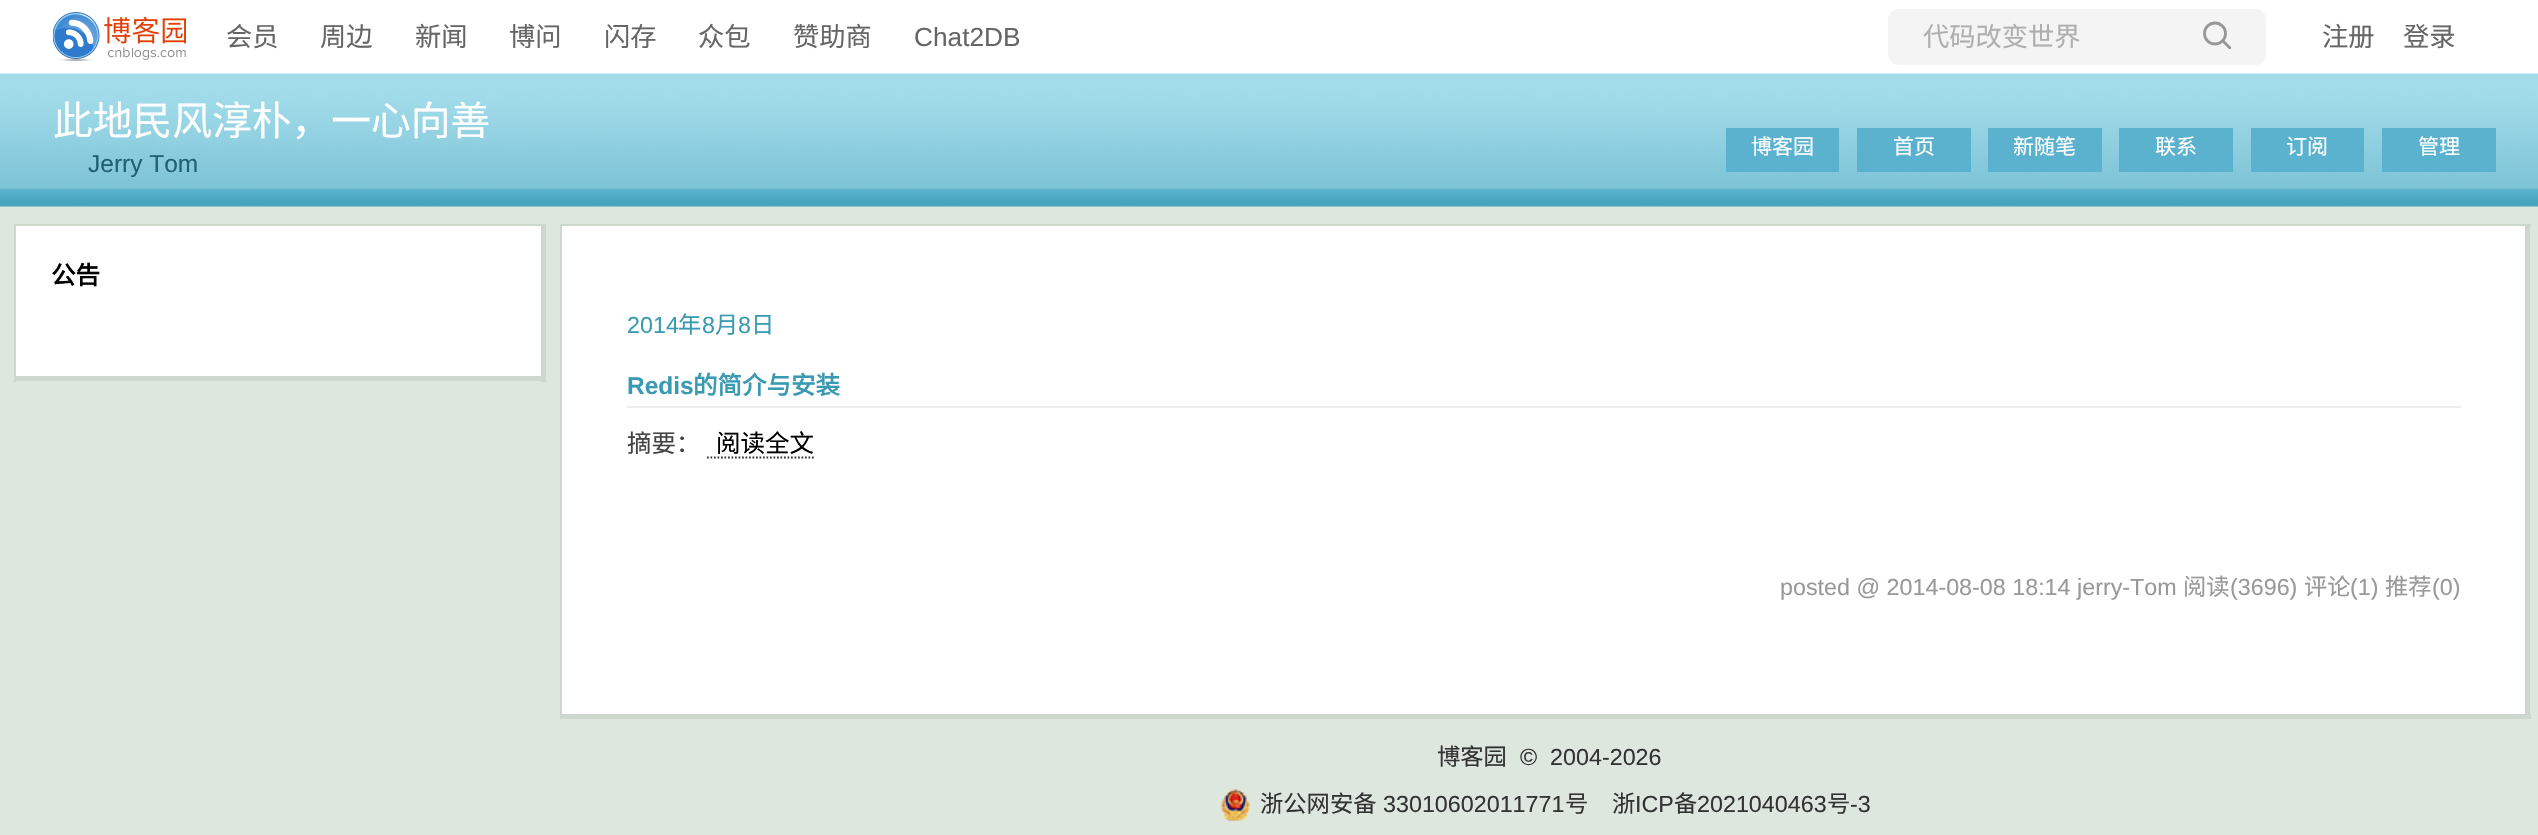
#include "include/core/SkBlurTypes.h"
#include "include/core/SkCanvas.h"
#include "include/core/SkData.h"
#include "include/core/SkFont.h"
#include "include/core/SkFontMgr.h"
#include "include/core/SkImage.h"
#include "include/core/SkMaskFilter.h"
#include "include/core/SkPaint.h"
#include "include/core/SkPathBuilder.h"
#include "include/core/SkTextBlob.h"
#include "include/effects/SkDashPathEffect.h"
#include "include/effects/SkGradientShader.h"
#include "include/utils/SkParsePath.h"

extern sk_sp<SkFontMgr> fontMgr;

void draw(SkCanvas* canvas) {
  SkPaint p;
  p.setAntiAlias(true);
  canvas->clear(SkColorSetRGB(222, 231, 222));
  p.setColor(SK_ColorWHITE);
  canvas->drawRect(SkRect::MakeLTRB(0, 0, 2538, 74), p);
  canvas->drawImageRect(SkImages::DeferredFromEncodedData(SkData::MakeFromFileName("images/1.png")), SkRect::MakeLTRB(53, 12, 186, 61), SkSamplingOptions());
  p.setColor(SkColorSetRGB(244, 244, 244));
  canvas->drawRoundRect(SkRect::MakeLTRB(1888, 9, 2266, 65), 11, 11, p);
  p.setStyle(SkPaint::kStroke_Style);
  p.setStrokeWidth(2.8f);
  p.setColor(SkColorSetRGB(151, 151, 151));
  canvas->drawCircle(2215, 33.5f, 10.5f, p);
  canvas->save();
  canvas->clipRect(SkRect::MakeLTRB(2203, 21, 2231, 49));
  canvas->drawPath(SkPathBuilder().moveTo(2222, 40).lineTo(2233, 51).detach(), p);
  canvas->restore();
  canvas->drawImageRect(SkImages::DeferredFromEncodedData(SkData::MakeFromFileName("images/2.png")), SkRect::MakeLTRB(0, 73, 2538, 207), SkSamplingOptions());
  p.setStyle(SkPaint::kFill_Style);
  p.setColor(SkColorSetRGB(90, 178, 206));
  canvas->drawRect(SkRect::MakeLTRB(1726, 128, 1839, 172), p);
  canvas->drawRect(SkRect::MakeLTRB(1857, 128, 1971, 172), p);
  canvas->drawRect(SkRect::MakeLTRB(1988, 128, 2102, 172), p);
  canvas->drawRect(SkRect::MakeLTRB(2119, 128, 2233, 172), p);
  canvas->drawRect(SkRect::MakeLTRB(2251, 128, 2364, 172), p);
  canvas->drawRect(SkRect::MakeLTRB(2382, 128, 2496, 172), p);
  p.setColor(SK_ColorWHITE);
  canvas->drawRect(SkRect::MakeLTRB(16, 226, 541, 376), p);
  p.setColor(SkColorSetRGB(206, 215, 206));
  canvas->drawRect(SkRect::MakeLTRB(14, 224, 546, 226), p);
  canvas->drawRect(SkRect::MakeLTRB(541, 224, 546, 382), p);
  canvas->drawRect(SkRect::MakeLTRB(14, 376, 546, 381), p);
  canvas->drawRect(SkRect::MakeLTRB(14, 224, 16, 382), p);
  p.setColor(SK_ColorWHITE);
  canvas->drawRect(SkRect::MakeLTRB(562, 226, 2525, 714), p);
  p.setColor(SkColorSetRGB(206, 215, 206));
  canvas->drawRect(SkRect::MakeLTRB(560, 224, 2531, 226), p);
  canvas->drawRect(SkRect::MakeLTRB(2525, 224, 2530, 719), p);
  canvas->drawRect(SkRect::MakeLTRB(560, 714, 2531, 719), p);
  canvas->drawRect(SkRect::MakeLTRB(560, 224, 562, 719), p);
  p.setColor(SkColorSetRGB(238, 238, 238));
  canvas->drawRect(SkRect::MakeLTRB(627, 406, 2461, 408), p);
  p.setStyle(SkPaint::kStroke_Style);
  p.setStrokeWidth(1.8f);
  p.setColor(SkColorSetRGB(51, 51, 51));
  p.setPathEffect(SkDashPathEffect::Make({{1.75f, 1.75f}}, 0));
  canvas->drawPath(SkPathBuilder().moveTo(707, 457.5f).lineTo(814, 457.5f).detach(), p);
  p.setPathEffect(nullptr);
  canvas->drawImageRect(SkImages::DeferredFromEncodedData(SkData::MakeFromFileName("images/3.png")), SkRect::MakeLTRB(1221, 789, 1250, 821), SkSamplingOptions());
  SkFont font1(fontMgr->matchFamilyStyle("Noto Sans CJK SC", SkFontStyle::Normal()), 26.25f);
  font1.setSubpixel(true);
  p.setStyle(SkPaint::kFill_Style);
  p.setColor(SkColorSetRGB(102, 102, 102));
  canvas->drawString("会员", 226, 46, font1, p);
  canvas->drawString("周边", 320, 46, font1, p);
  canvas->drawString("新闻", 415, 46, font1, p);
  canvas->drawString("博问", 509, 46, font1, p);
  canvas->drawString("闪存", 604, 46, font1, p);
  canvas->drawString("众包", 698, 46, font1, p);
  canvas->drawString("赞助商", 793, 46, font1, p);
  SkFont font2(fontMgr->matchFamilyStyle("Liberation Sans", SkFontStyle::Normal()), 26.25f);
  font2.setSubpixel(true);
  canvas->drawString("Chat2DB", 914, 46, font2, p);
  p.setColor(SkColorSetRGB(175, 175, 175));
  canvas->drawString("代码改变世界", 1923, 46, font1, p);
  p.setColor(SkColorSetRGB(102, 102, 102));
  canvas->drawString("注册", 2322, 46, font1, p);
  canvas->drawString("登录", 2403, 46, font1, p);
  SkFont font3(fontMgr->matchFamilyStyle("Noto Sans CJK SC", SkFontStyle::Normal()), 39.75f);
  font3.setSubpixel(true);
  p.setColor(SK_ColorWHITE);
  canvas->drawString("此地民风淳朴，一心向善", 53, 135, font3, p);
  SkFont font4(fontMgr->matchFamilyStyle("Liberation Sans", SkFontStyle::Normal()), 24.5f);
  font4.setSubpixel(true);
  p.setColor(SkColorSetRGB(33, 97, 115));
  canvas->drawString("Jerry Tom", 88, 172, font4, p);
  SkFont font5(fontMgr->matchFamilyStyle("Noto Sans CJK SC", SkFontStyle::Normal()), 21);
  font5.setSubpixel(true);
  p.setColor(SK_ColorWHITE);
  canvas->drawString("博客园", 1751, 154, font5, p);
  canvas->drawString("首页", 1893, 154, font5, p);
  canvas->drawString("新随笔", 2013, 154, font5, p);
  canvas->drawString("联系", 2155, 154, font5, p);
  canvas->drawString("订阅", 2286, 154, font5, p);
  canvas->drawString("管理", 2418, 154, font5, p);
  SkFont font6(fontMgr->matchFamilyStyle("Noto Sans CJK SC", SkFontStyle::Bold()), 24.5f);
  font6.setSubpixel(true);
  p.setColor(SK_ColorBLACK);
  canvas->drawString("公告", 51, 284, font6, p);
  SkFont font7(fontMgr->matchFamilyStyle("Liberation Sans", SkFontStyle::Normal()), 23.3f);
  font7.setSubpixel(true);
  p.setColor(SkColorSetRGB(57, 154, 178));
  canvas->drawString("2014", 627, 333, font7, p);
  SkFont font8(fontMgr->matchFamilyStyle("Noto Sans CJK SC", SkFontStyle::Normal()), 23.3f);
  font8.setSubpixel(true);
  canvas->drawString("年", 678, 333, font8, p);
  canvas->drawString("8", 702, 333, font7, p);
  canvas->drawString("月", 715, 333, font8, p);
  canvas->drawString("8", 738, 333, font7, p);
  canvas->drawString("日", 751, 333, font8, p);
  SkFont font9(fontMgr->matchFamilyStyle("Liberation Sans", SkFontStyle::Bold()), 24.5f);
  font9.setSubpixel(true);
  canvas->drawString("Redis", 627, 394, font9, p);
  canvas->drawString("的简介与安装", 693, 394, font6, p);
  SkFont font10(fontMgr->matchFamilyStyle("Noto Sans CJK SC", SkFontStyle::Normal()), 24.5f);
  font10.setSubpixel(true);
  p.setColor(SkColorSetRGB(68, 68, 68));
  canvas->drawString("摘要：", 627, 452, font10, p);
  p.setColor(SK_ColorBLACK);
  canvas->drawString("阅读全文", 716, 452, font10, p);
  p.setColor(SkColorSetRGB(153, 153, 153));
  canvas->drawString("posted @ 2014-08-08 18:14 jerry-Tom", 1780, 595, font7, p);
  canvas->drawString("阅读", 2183, 595, font8, p);
  canvas->drawString("(3696)", 2230, 595, font7, p);
  canvas->drawString("评论", 2304, 595, font8, p);
  canvas->drawString("(1)", 2350, 595, font7, p);
  canvas->drawString("推荐", 2385, 595, font8, p);
  canvas->drawString("(0)", 2432, 595, font7, p);
  p.setColor(SkColorSetRGB(51, 51, 51));
  canvas->drawString("博客园", 1437, 765, font8, p);
  canvas->drawString("©  2004-2026", 1520, 765, font7, p);
  canvas->drawString("浙公网安备", 1260, 812, font8, p);
  canvas->drawString("33010602011771", 1383, 812, font7, p);
  canvas->drawString("号", 1565, 812, font8, p);
  canvas->drawString("浙", 1612, 812, font8, p);
  canvas->drawString("ICP", 1635, 812, font7, p);
  canvas->drawString("备", 1674, 812, font8, p);
  canvas->drawString("2021040463", 1697, 812, font7, p);
  canvas->drawString("号", 1827, 812, font8, p);
  canvas->drawString("-3", 1850, 812, font7, p);
}
